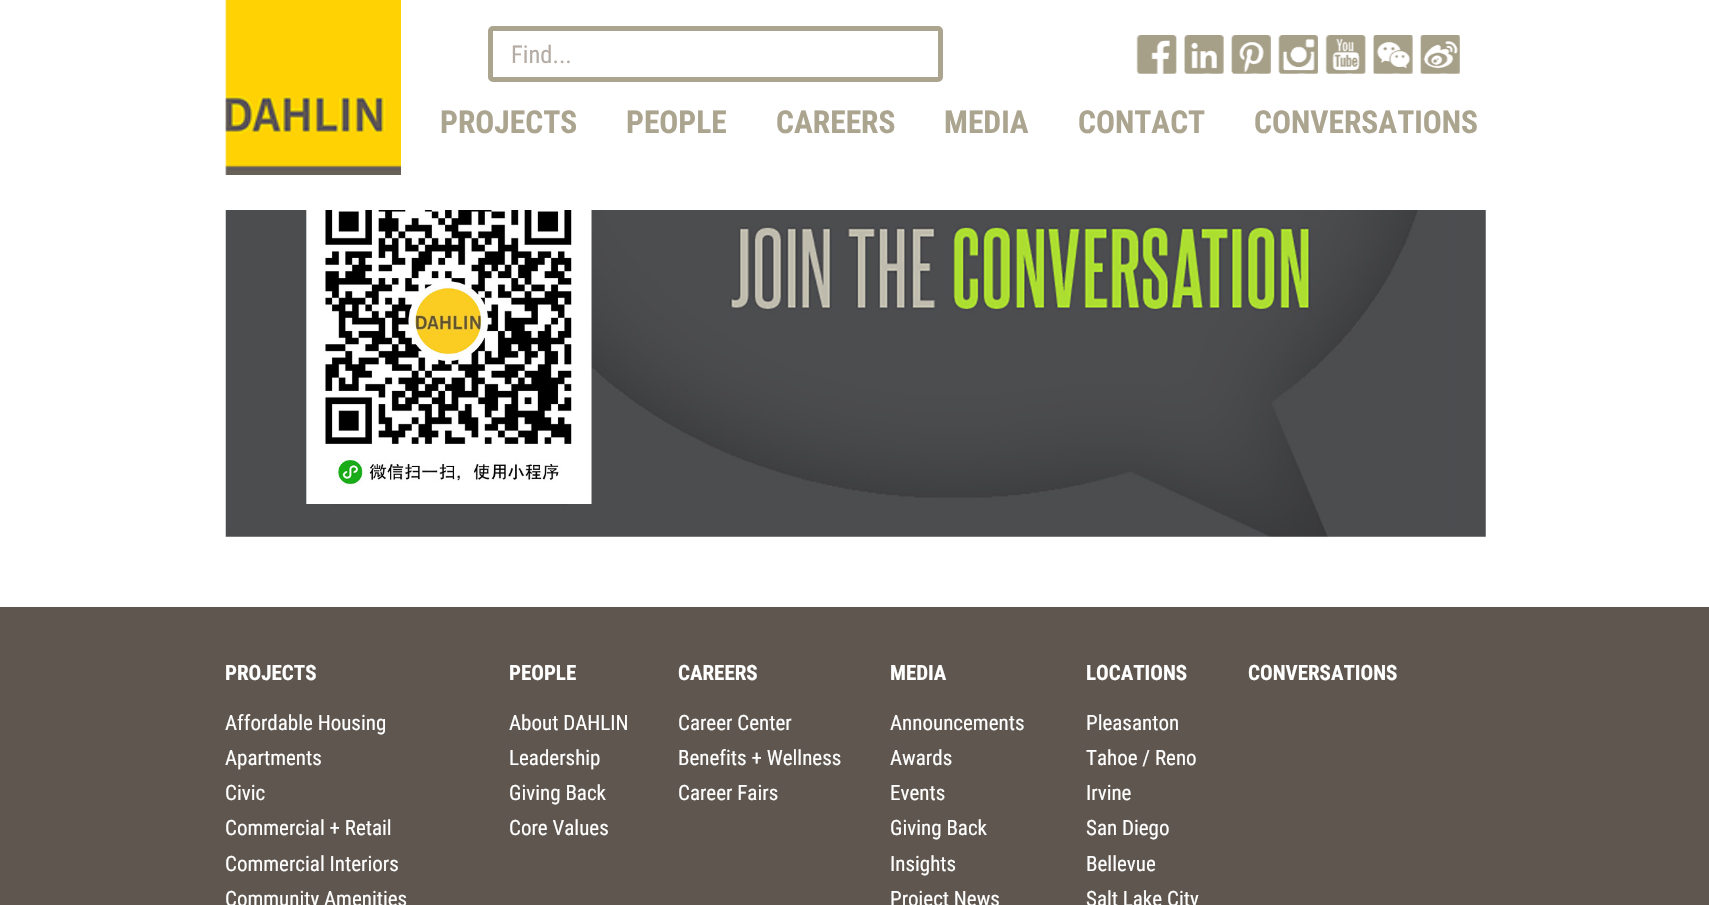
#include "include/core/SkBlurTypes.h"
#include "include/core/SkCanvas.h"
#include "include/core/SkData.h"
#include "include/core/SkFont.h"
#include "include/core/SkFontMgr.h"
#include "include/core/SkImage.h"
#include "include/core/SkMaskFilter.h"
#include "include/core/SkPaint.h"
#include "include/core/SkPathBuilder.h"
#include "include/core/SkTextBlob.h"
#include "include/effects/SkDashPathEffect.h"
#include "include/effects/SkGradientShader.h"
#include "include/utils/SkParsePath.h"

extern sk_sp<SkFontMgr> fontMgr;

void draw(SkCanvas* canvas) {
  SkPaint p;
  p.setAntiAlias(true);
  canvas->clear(SK_ColorWHITE);
  canvas->drawImageRect(SkImages::DeferredFromEncodedData(SkData::MakeFromFileName("images/1.png")), SkRect::MakeLTRB(225, 0, 401, 175), SkSamplingOptions());
  p.setStyle(SkPaint::kStroke_Style);
  p.setStrokeWidth(5);
  p.setColor(SkColorSetRGB(171, 164, 143));
  canvas->drawRoundRect(SkRect::MakeLTRB(490.5f, 28.5f, 940.5f, 79.5f), 2.5f, 2.5f, p);
  canvas->drawImageRect(SkImages::DeferredFromEncodedData(SkData::MakeFromFileName("images/2.png")), SkRect::MakeLTRB(1136, 35, 1177, 74), SkSamplingOptions());
  canvas->drawImageRect(SkImages::DeferredFromEncodedData(SkData::MakeFromFileName("images/3.png")), SkRect::MakeLTRB(1136, 35, 1177, 74), SkSamplingOptions());
  canvas->drawImageRect(SkImages::DeferredFromEncodedData(SkData::MakeFromFileName("images/4.png")), SkRect::MakeLTRB(1184, 35, 1224, 74), SkSamplingOptions());
  canvas->drawImageRect(SkImages::DeferredFromEncodedData(SkData::MakeFromFileName("images/5.png")), SkRect::MakeLTRB(1184, 35, 1224, 74), SkSamplingOptions());
  canvas->drawImageRect(SkImages::DeferredFromEncodedData(SkData::MakeFromFileName("images/6.png")), SkRect::MakeLTRB(1231, 35, 1271, 74), SkSamplingOptions());
  canvas->drawImageRect(SkImages::DeferredFromEncodedData(SkData::MakeFromFileName("images/7.png")), SkRect::MakeLTRB(1231, 35, 1271, 74), SkSamplingOptions());
  canvas->drawImageRect(SkImages::DeferredFromEncodedData(SkData::MakeFromFileName("images/8.png")), SkRect::MakeLTRB(1278, 35, 1318, 74), SkSamplingOptions());
  canvas->drawImageRect(SkImages::DeferredFromEncodedData(SkData::MakeFromFileName("images/9.png")), SkRect::MakeLTRB(1278, 35, 1318, 74), SkSamplingOptions());
  canvas->drawImageRect(SkImages::DeferredFromEncodedData(SkData::MakeFromFileName("images/10.png")), SkRect::MakeLTRB(1325, 35, 1366, 74), SkSamplingOptions());
  canvas->drawImageRect(SkImages::DeferredFromEncodedData(SkData::MakeFromFileName("images/11.png")), SkRect::MakeLTRB(1325, 35, 1366, 74), SkSamplingOptions());
  canvas->drawImageRect(SkImages::DeferredFromEncodedData(SkData::MakeFromFileName("images/12.png")), SkRect::MakeLTRB(1373, 35, 1413, 74), SkSamplingOptions());
  canvas->drawImageRect(SkImages::DeferredFromEncodedData(SkData::MakeFromFileName("images/13.png")), SkRect::MakeLTRB(1373, 35, 1413, 74), SkSamplingOptions());
  canvas->drawImageRect(SkImages::DeferredFromEncodedData(SkData::MakeFromFileName("images/14.png")), SkRect::MakeLTRB(1420, 35, 1460, 74), SkSamplingOptions());
  canvas->drawImageRect(SkImages::DeferredFromEncodedData(SkData::MakeFromFileName("images/15.png")), SkRect::MakeLTRB(1420, 35, 1460, 74), SkSamplingOptions());
  canvas->drawImageRect(SkImages::DeferredFromEncodedData(SkData::MakeFromFileName("images/16.png")), SkRect::MakeLTRB(225, 210, 1486, 537), SkSamplingOptions());
  p.setStyle(SkPaint::kFill_Style);
  p.setColor(SkColorSetRGB(95, 87, 79));
  canvas->drawRect(SkRect::MakeLTRB(0, 607, 1709, 905), p);
  SkFont font1(fontMgr->matchFamilyStyle("Roboto Condensed", SkFontStyle::Normal()), 24.5f);
  font1.setSubpixel(true);
  p.setColor(SkColorSetRGB(180, 172, 165));
  canvas->drawString("Find...", 511, 63, font1, p);
  SkFont font2(fontMgr->matchFamilyStyle("Roboto Condensed", SkFontStyle::Bold()), 31.5f);
  font2.setSubpixel(true);
  p.setColor(SkColorSetRGB(171, 164, 143));
  canvas->drawString("PROJECTS", 440, 133, font2, p);
  canvas->drawString("PEOPLE", 626, 133, font2, p);
  canvas->drawString("CAREERS", 776, 133, font2, p);
  canvas->drawString("MEDIA", 944, 133, font2, p);
  canvas->drawString("CONTACT", 1078, 133, font2, p);
  canvas->drawString("CONVERSATIONS", 1254, 133, font2, p);
  SkFont font3(fontMgr->matchFamilyStyle("Roboto Condensed", SkFontStyle::Bold()), 21);
  font3.setSubpixel(true);
  p.setColor(SK_ColorWHITE);
  canvas->drawString("PROJECTS", 225, 680, font3, p);
  SkFont font4(fontMgr->matchFamilyStyle("Roboto Condensed", SkFontStyle::Normal()), 21);
  font4.setSubpixel(true);
  canvas->drawString("Affordable Housing", 225, 730, font4, p);
  canvas->drawString("Apartments", 225, 765, font4, p);
  canvas->drawString("Civic", 225, 800, font4, p);
  canvas->drawString("Commercial + Retail", 225, 835, font4, p);
  canvas->drawString("Commercial Interiors", 225, 871, font4, p);
  canvas->drawString("Community Amenities", 225, 906, font4, p);
  canvas->drawString("PEOPLE", 509, 680, font3, p);
  canvas->drawString("About DAHLIN", 509, 730, font4, p);
  canvas->drawString("Leadership", 509, 765, font4, p);
  canvas->drawString("Giving Back", 509, 800, font4, p);
  canvas->drawString("Core Values", 509, 835, font4, p);
  canvas->drawString("CAREERS", 678, 680, font3, p);
  canvas->drawString("Career Center", 678, 730, font4, p);
  canvas->drawString("Benefits + Wellness", 678, 765, font4, p);
  canvas->drawString("Career Fairs", 678, 800, font4, p);
  canvas->drawString("MEDIA", 890, 680, font3, p);
  canvas->drawString("Announcements", 890, 730, font4, p);
  canvas->drawString("Awards", 890, 765, font4, p);
  canvas->drawString("Events", 890, 800, font4, p);
  canvas->drawString("Giving Back", 890, 835, font4, p);
  canvas->drawString("Insights", 890, 871, font4, p);
  canvas->drawString("Project News", 890, 906, font4, p);
  canvas->drawString("LOCATIONS", 1086, 680, font3, p);
  canvas->drawString("Pleasanton", 1086, 730, font4, p);
  canvas->drawString("Tahoe / Reno", 1086, 765, font4, p);
  canvas->drawString("Irvine", 1086, 800, font4, p);
  canvas->drawString("San Diego", 1086, 835, font4, p);
  canvas->drawString("Bellevue", 1086, 871, font4, p);
  canvas->drawString("Salt Lake City", 1086, 906, font4, p);
  canvas->drawString("CONVERSATIONS", 1248, 680, font3, p);
}
